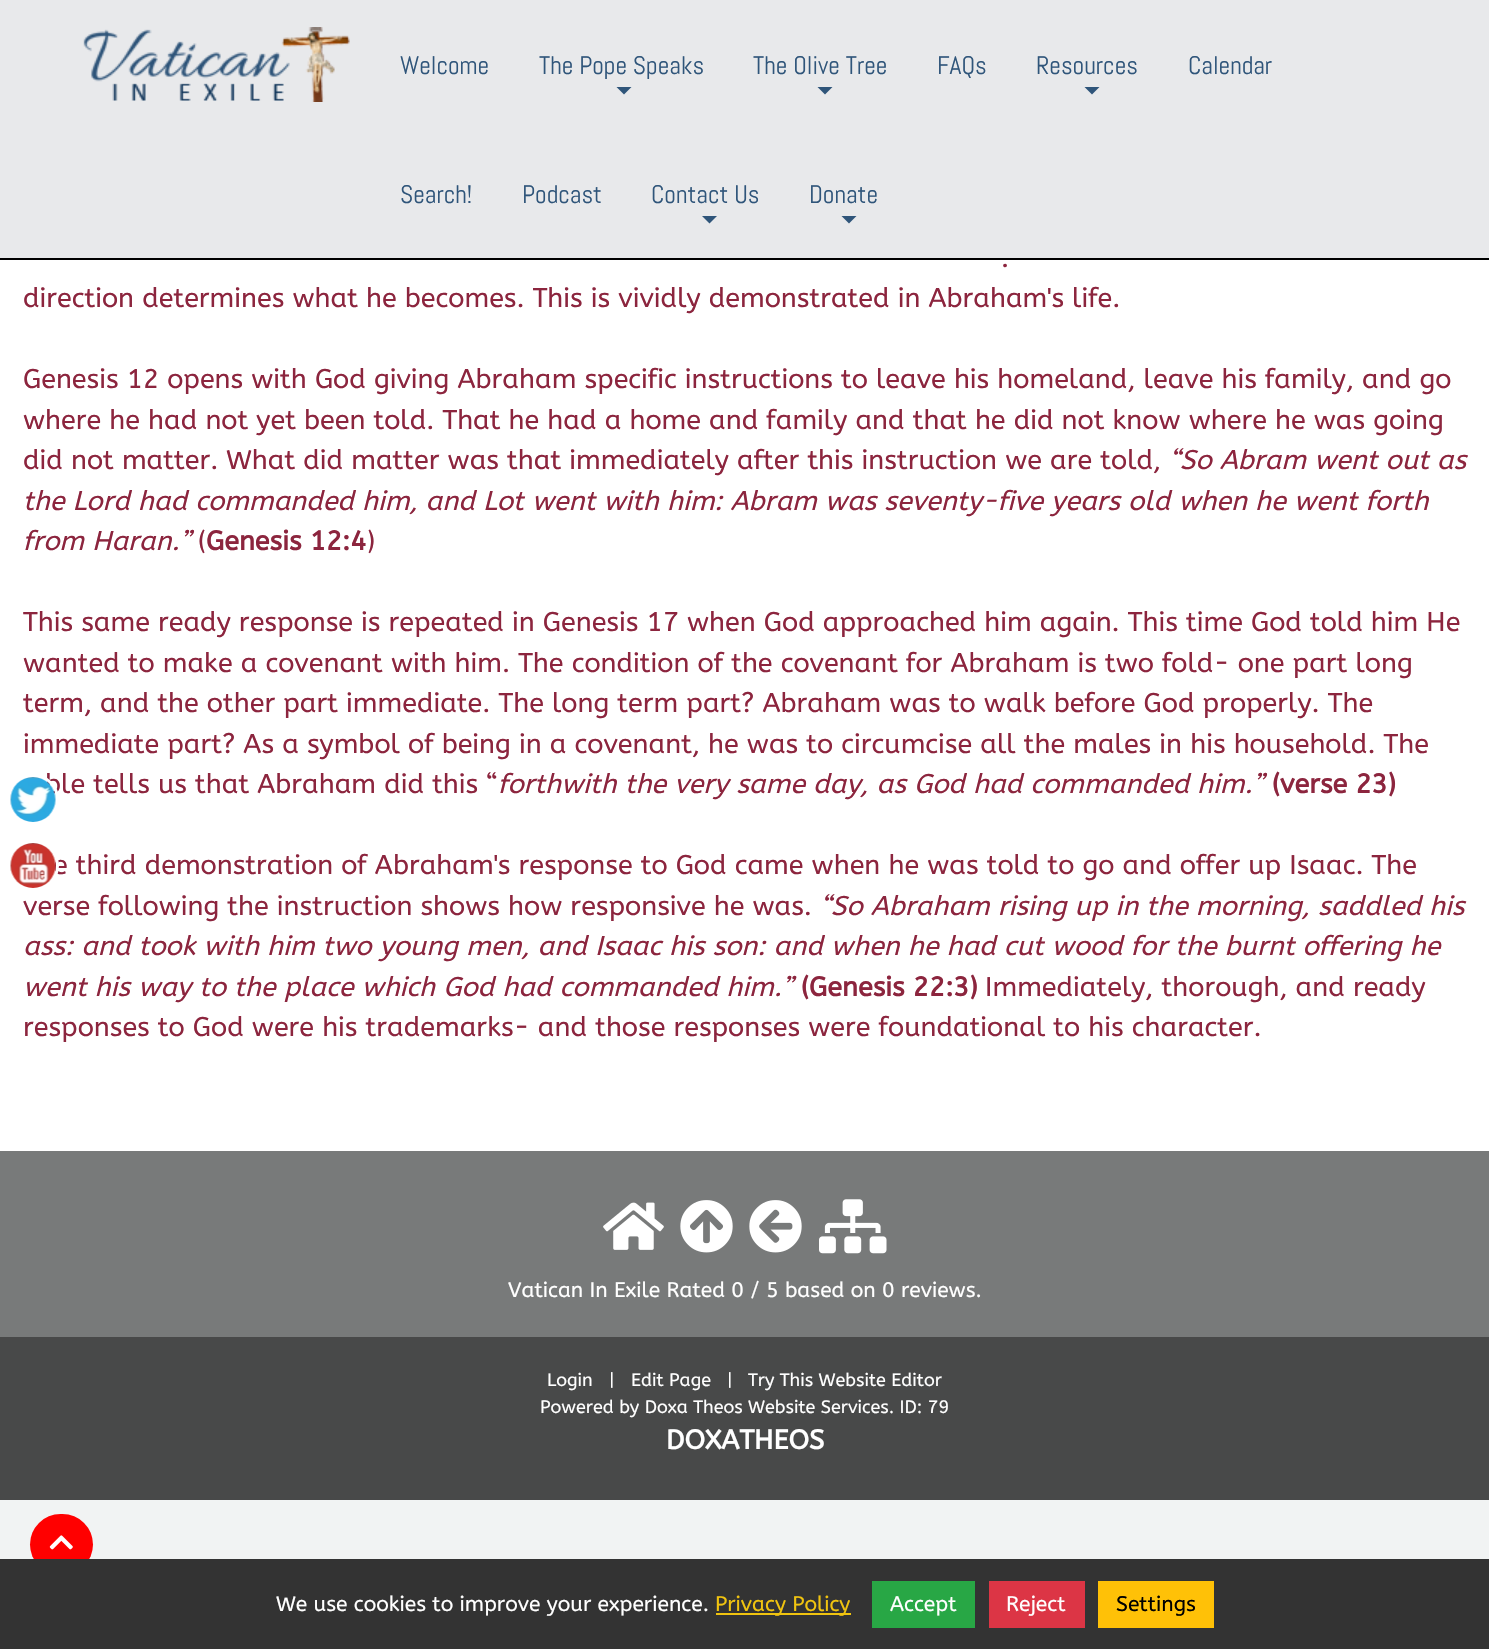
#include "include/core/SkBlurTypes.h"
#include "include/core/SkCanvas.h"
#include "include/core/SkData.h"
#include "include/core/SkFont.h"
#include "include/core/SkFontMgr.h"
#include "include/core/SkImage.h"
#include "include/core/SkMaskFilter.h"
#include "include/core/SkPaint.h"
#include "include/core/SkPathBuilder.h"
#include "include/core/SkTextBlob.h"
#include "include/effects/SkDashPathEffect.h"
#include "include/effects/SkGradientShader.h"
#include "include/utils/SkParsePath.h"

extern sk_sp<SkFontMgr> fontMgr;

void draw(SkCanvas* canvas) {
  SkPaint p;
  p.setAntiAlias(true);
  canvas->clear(SkColorSetRGB(241, 243, 243));
  p.setColor(SkColorSetRGB(232, 233, 235));
  canvas->drawRect(SkRect::MakeLTRB(0, 0, 1489, 258), p);
  p.setColor(SK_ColorBLACK);
  canvas->drawRect(SkRect::MakeLTRB(0, 258, 1489, 260), p);
  canvas->drawImageRect(SkImages::DeferredFromEncodedData(SkData::MakeFromFileName("images/1.png")), SkRect::MakeLTRB(83, 27, 350, 102), SkSamplingOptions());
  p.setColor(SkColorSetRGB(47, 85, 122));
  canvas->drawPath(SkPathBuilder().moveTo(616.5f, 87).lineTo(631.5f, 87).lineTo(624, 94.5f).close().detach(), p);
  canvas->drawPath(SkPathBuilder().moveTo(817.5f, 87).lineTo(832.5f, 87).lineTo(825, 94.5f).close().detach(), p);
  canvas->drawPath(SkPathBuilder().moveTo(1084.5f, 87).lineTo(1099.5f, 87).lineTo(1092, 94.5f).close().detach(), p);
  canvas->drawPath(SkPathBuilder().moveTo(702, 216).lineTo(717, 216).lineTo(709.5f, 223.5f).close().detach(), p);
  canvas->drawPath(SkPathBuilder().moveTo(841.5f, 216).lineTo(856.5f, 216).lineTo(849, 223.5f).close().detach(), p);
  p.setColor(SK_ColorWHITE);
  canvas->drawRect(SkRect::MakeLTRB(0, 260, 1489, 1151), p);
  p.setColor(SkColorSetRGB(120, 122, 122));
  canvas->drawRect(SkRect::MakeLTRB(0, 1151, 1489, 1337), p);
  canvas->drawImageRect(SkImages::DeferredFromEncodedData(SkData::MakeFromFileName("images/4.png")), SkRect::MakeLTRB(603, 1202, 664, 1250), SkSamplingOptions());
  canvas->drawImageRect(SkImages::DeferredFromEncodedData(SkData::MakeFromFileName("images/5.png")), SkRect::MakeLTRB(680, 1200, 733, 1253), SkSamplingOptions());
  canvas->drawImageRect(SkImages::DeferredFromEncodedData(SkData::MakeFromFileName("images/6.png")), SkRect::MakeLTRB(749, 1200, 802, 1253), SkSamplingOptions());
  canvas->drawImageRect(SkImages::DeferredFromEncodedData(SkData::MakeFromFileName("images/7.png")), SkRect::MakeLTRB(819, 1199, 887, 1254), SkSamplingOptions());
  p.setColor(SkColorSetRGB(72, 73, 73));
  canvas->drawRect(SkRect::MakeLTRB(0, 1337, 1489, 1500), p);
  p.setColor(SkColorSetRGB(255, 0, 0));
  canvas->drawRoundRect(SkRect::MakeLTRB(30, 1514, 93, 1575), 30.5f, 30.5f, p);
  canvas->drawImageRect(SkImages::DeferredFromEncodedData(SkData::MakeFromFileName("images/8.png")), SkRect::MakeLTRB(49, 1535, 73, 1550), SkSamplingOptions());
  p.setColor(SkColorSetRGB(51, 51, 51));
  canvas->drawRect(SkRect::MakeLTRB(0, 1559, 1489, 1649), p);
  p.setColor(SkColorSetRGB(241, 196, 15));
  canvas->drawRect(SkRect::MakeLTRB(716, 1613, 851, 1615), p);
  p.setColor(SkColorSetRGB(40, 167, 69));
  canvas->drawRect(SkRect::MakeLTRB(872, 1581, 975, 1628), p);
  p.setColor(SkColorSetRGB(220, 53, 69));
  canvas->drawRect(SkRect::MakeLTRB(989, 1581, 1085, 1628), p);
  p.setColor(SkColorSetRGB(255, 193, 7));
  canvas->drawRect(SkRect::MakeLTRB(1098, 1581, 1214, 1628), p);
  SkFont font1(fontMgr->matchFamilyStyle("Abel", SkFontStyle::Normal()), 25.5f);
  font1.setSubpixel(true);
  p.setColor(SkColorSetRGB(47, 85, 122));
  canvas->drawString("Welcome", 400, 74, font1, p);
  canvas->drawString("The Pope Speaks", 539, 74, font1, p);
  canvas->drawString("The Olive Tree", 753, 74, font1, p);
  canvas->drawString("FAQs", 937, 74, font1, p);
  canvas->drawString("Resources", 1036, 74, font1, p);
  canvas->drawString("Calendar", 1188, 74, font1, p);
  canvas->drawString("Search!", 400, 203, font1, p);
  canvas->drawString("Podcast", 522, 203, font1, p);
  canvas->drawString("Contact Us", 651, 203, font1, p);
  canvas->drawString("Donate", 809, 203, font1, p);
  SkFont font2(fontMgr->matchFamilyStyle("ABeeZee", SkFontStyle::Normal()), 27);
  font2.setSubpixel(true);
  p.setColor(SkColorSetRGB(140, 37, 62));
  canvas->drawString(".", 1001, 267, font2, p);
  canvas->drawString("direction determines what he becomes. This is vividly demonstrated in Abraham's life.", 23, 307, font2, p);
  canvas->drawString("Genesis 12 opens with God giving Abraham specific instructions to leave his homeland, leave his family, and go", 23, 388, font2, p);
  canvas->drawString("where he had not yet been told. That he had a home and family and that he did not know where he was going", 23, 429, font2, p);
  canvas->drawString("did not matter. What did matter was that immediately after this instruction we are told,", 23, 469, font2, p);
  SkFont font3(fontMgr->matchFamilyStyle("ABeeZee", SkFontStyle::Italic()), 27);
  font3.setSubpixel(true);
  canvas->drawString("“So Abram went out as", 1169, 469, font3, p);
  canvas->drawString("the Lord had commanded him, and Lot went with him: Abram was seventy-five years old when he went forth", 23, 510, font3, p);
  canvas->drawString("from Haran.”", 23, 550, font3, p);
  canvas->drawString("(", 198, 550, font2, p);
  SkFont font4(fontMgr->matchFamilyStyle("ABeeZee", SkFontStyle::Bold()), 27);
  font4.setSubpixel(true);
  canvas->drawString("Genesis 12:4", 206, 550, font4, p);
  canvas->drawString(")", 367, 550, font2, p);
  canvas->drawString("This same ready response is repeated in Genesis 17 when God approached him again. This time God told him He", 23, 631, font2, p);
  canvas->drawString("wanted to make a covenant with him. The condition of the covenant for Abraham is two fold- one part long", 23, 672, font2, p);
  canvas->drawString("term, and the other part immediate. The long term part? Abraham was to walk before God properly. The", 23, 712, font2, p);
  canvas->drawString("immediate part? As a symbol of being in a covenant, he was to circumcise all the males in his household. The", 23, 753, font2, p);
  canvas->drawString("ble tells us that Abraham did this “", 45, 793, font2, p);
  canvas->drawString("forthwith the very same day, as God had commanded him.”", 498, 793, font3, p);
  canvas->drawString("(verse 23)", 1272, 793, font4, p);
  canvas->drawString("e third demonstration of Abraham's response to God came when he was told to go and offer up Isaac. The", 53, 874, font2, p);
  canvas->drawString("verse following the instruction shows how responsive he was.", 23, 915, font2, p);
  canvas->drawString("“So Abraham rising up in the morning, saddled his", 820, 915, font3, p);
  canvas->drawString("ass: and took with him two young men, and Isaac his son: and when he had cut wood for the burnt offering he", 23, 955, font3, p);
  canvas->drawString("went his way to the place which God had commanded him.”", 23, 996, font3, p);
  canvas->drawString("(Genesis 22:3)", 801, 996, font4, p);
  canvas->drawString("Immediately, thorough, and ready", 985, 996, font2, p);
  canvas->drawString("responses to God were his trademarks- and those responses were foundational to his character.", 23, 1036, font2, p);
  p.setStyle(SkPaint::kStroke_Style);
  p.setStrokeWidth(3);
  p.setColor(SK_ColorWHITE);
  canvas->drawCircle(33.5f, 799.5f, 24, p);
  canvas->drawImageRect(SkImages::DeferredFromEncodedData(SkData::MakeFromFileName("images/2.png")), SkRect::MakeLTRB(10, 777, 56, 822), SkSamplingOptions());
  canvas->drawCircle(33.5f, 865.5f, 24, p);
  canvas->drawImageRect(SkImages::DeferredFromEncodedData(SkData::MakeFromFileName("images/3.png")), SkRect::MakeLTRB(10, 843, 56, 888), SkSamplingOptions());
  SkFont font5(fontMgr->matchFamilyStyle("ABeeZee", SkFontStyle::Normal()), 21);
  font5.setSubpixel(true);
  p.setStyle(SkPaint::kFill_Style);
  canvas->drawString("Vatican In Exile Rated 0 / 5 based on 0 reviews.", 508, 1297, font5, p);
  SkFont font6(fontMgr->matchFamilyStyle("ABeeZee", SkFontStyle::Normal()), 18);
  font6.setSubpixel(true);
  canvas->drawString("Login", 547, 1386, font6, p);
  canvas->drawString("|", 609, 1386, font6, p);
  canvas->drawString("Edit Page", 631, 1386, font6, p);
  canvas->drawString("|", 727, 1386, font6, p);
  canvas->drawString("Try This Website Editor", 748, 1386, font6, p);
  canvas->drawString("Powered by Doxa Theos Website Services. ID: 79", 540, 1413, font6, p);
  canvas->drawString("DOXATHEOS", 666, 1449, font4, p);
  canvas->drawString("We use cookies to improve your experience.", 276, 1611, font5, p);
  p.setColor(SkColorSetRGB(241, 196, 15));
  canvas->drawString("Privacy Policy", 715, 1611, font5, p);
  p.setColor(SK_ColorWHITE);
  canvas->drawString("Accept", 890, 1611, font5, p);
  canvas->drawString("Reject", 1006, 1611, font5, p);
  p.setColor(SK_ColorBLACK);
  canvas->drawString("Settings", 1116, 1611, font5, p);
}
